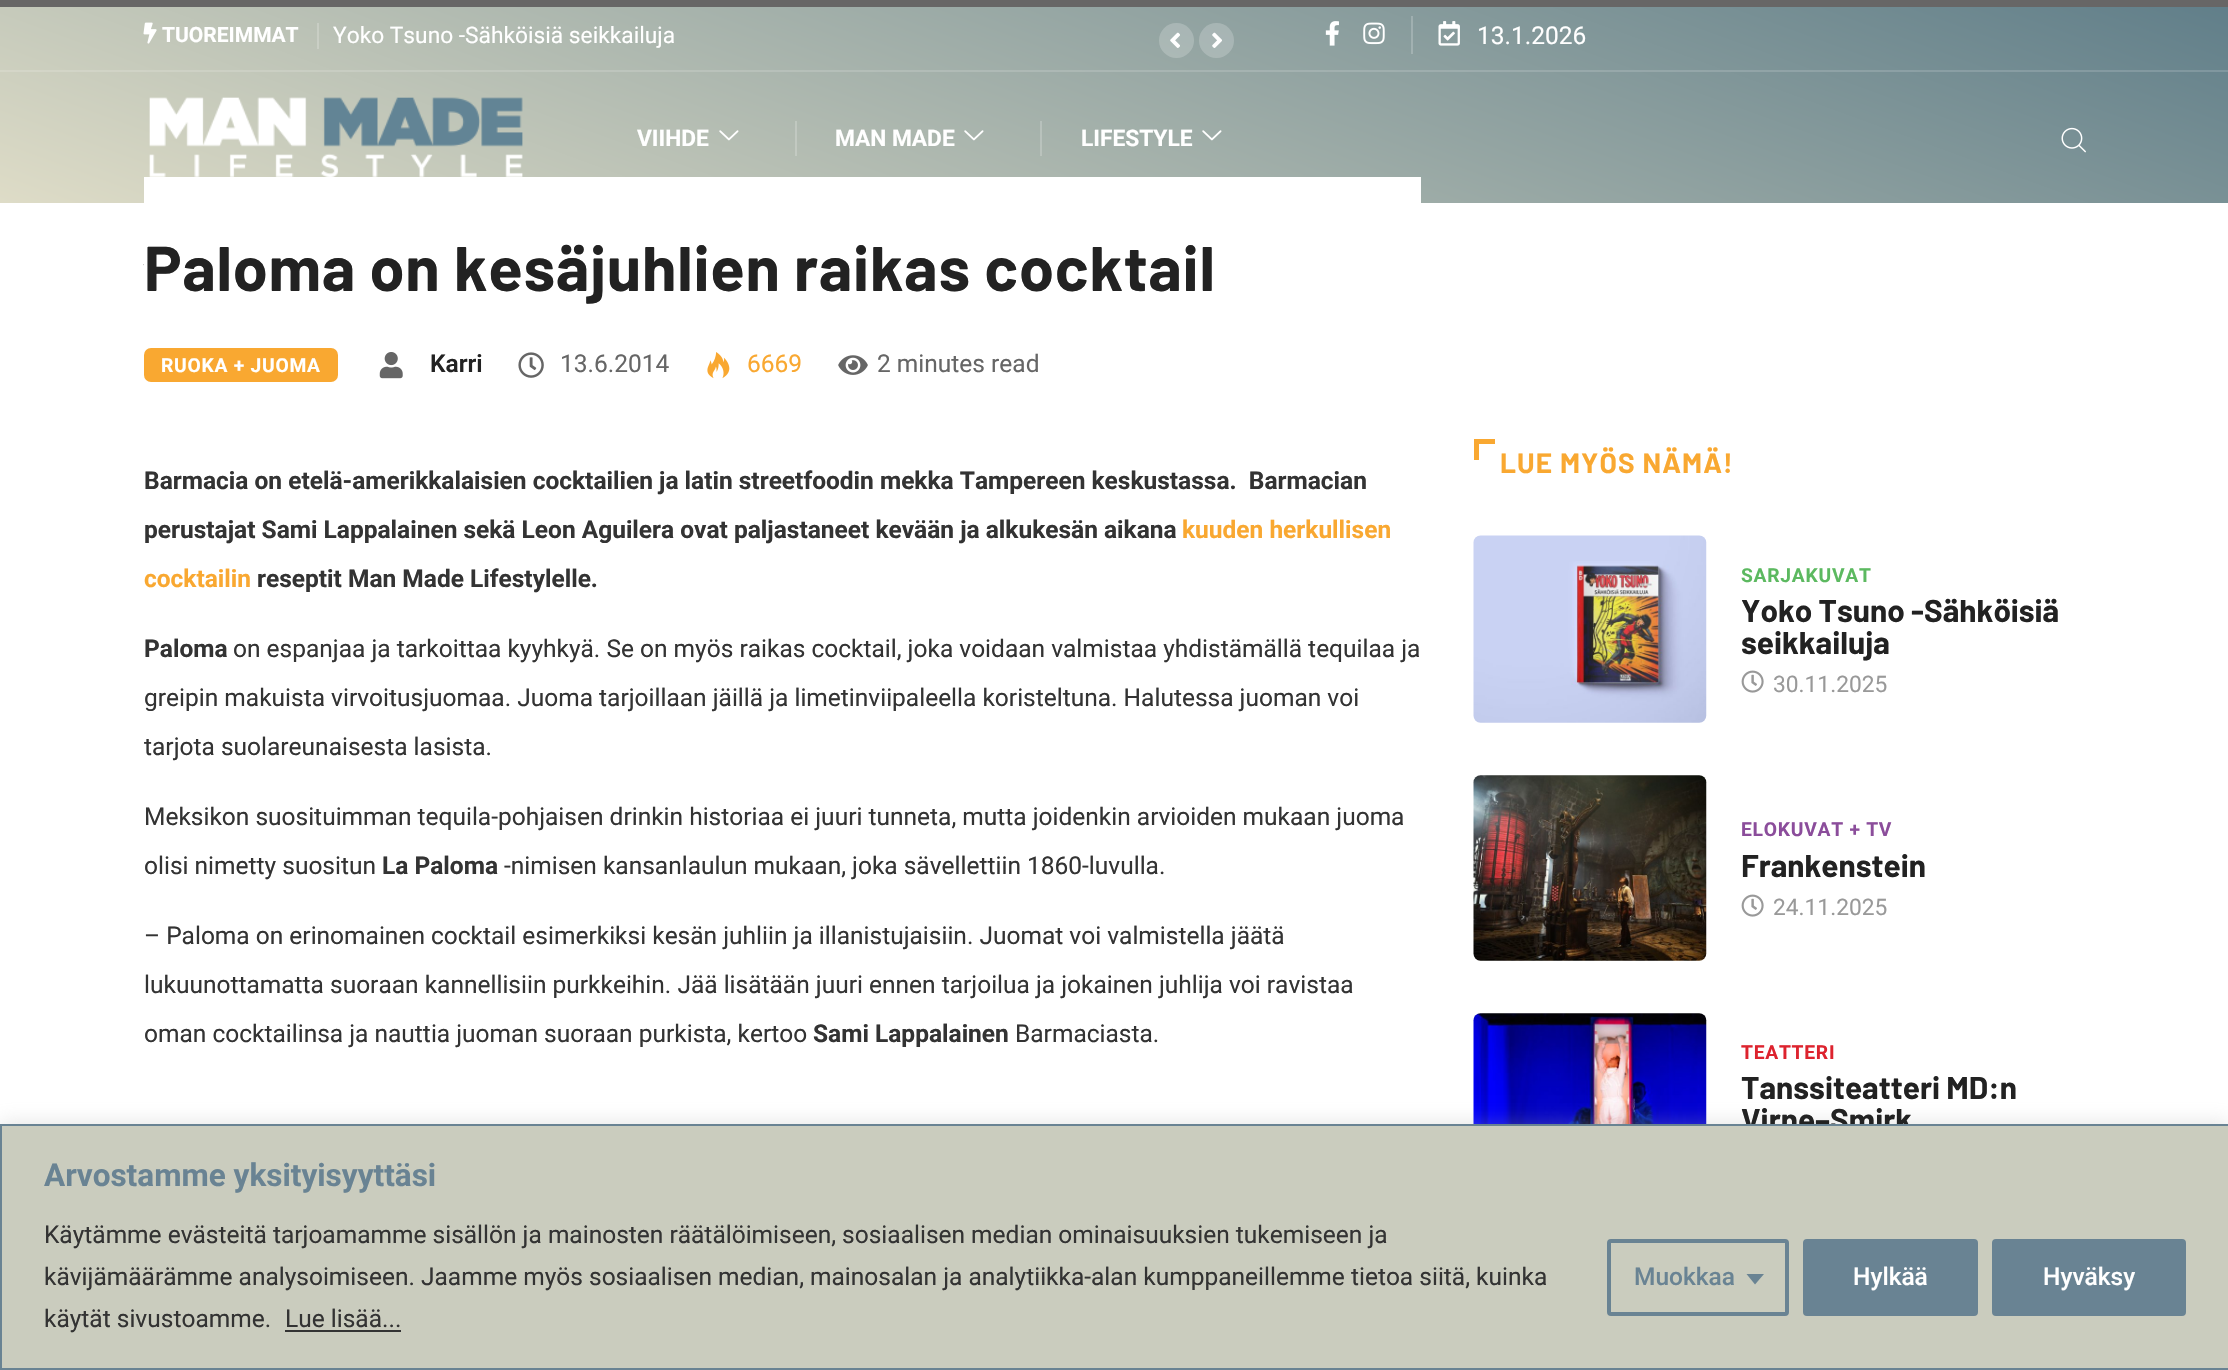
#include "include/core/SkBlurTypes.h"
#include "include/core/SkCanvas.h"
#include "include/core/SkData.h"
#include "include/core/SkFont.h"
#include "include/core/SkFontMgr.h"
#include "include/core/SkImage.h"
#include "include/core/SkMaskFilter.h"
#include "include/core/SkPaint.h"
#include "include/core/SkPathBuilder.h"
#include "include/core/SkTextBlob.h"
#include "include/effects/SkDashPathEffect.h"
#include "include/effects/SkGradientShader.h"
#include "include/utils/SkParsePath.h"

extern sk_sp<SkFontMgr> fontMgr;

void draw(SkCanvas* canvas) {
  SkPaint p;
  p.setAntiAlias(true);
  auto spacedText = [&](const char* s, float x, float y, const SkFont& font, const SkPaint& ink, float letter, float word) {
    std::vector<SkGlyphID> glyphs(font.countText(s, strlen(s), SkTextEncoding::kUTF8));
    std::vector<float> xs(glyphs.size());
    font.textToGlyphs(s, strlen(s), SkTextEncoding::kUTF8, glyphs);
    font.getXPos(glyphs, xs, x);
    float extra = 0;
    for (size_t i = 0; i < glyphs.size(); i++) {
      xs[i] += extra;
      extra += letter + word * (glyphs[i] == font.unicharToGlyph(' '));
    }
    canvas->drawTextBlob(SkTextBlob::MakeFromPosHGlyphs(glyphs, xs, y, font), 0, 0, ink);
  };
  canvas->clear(SK_ColorWHITE);
  p.setColor(SkColorSetRGB(103, 102, 102));
  canvas->drawRect(SkRect::MakeLTRB(0, 0, 2228, 7), p);
  {
    const SkColor colors[] = {SkColorSetRGB(222, 220, 199), SkColorSetRGB(96, 126, 137)};
    const float stops[] = {0, 1};
    const SkPoint ends[] = {{952, 549}, {1278, -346}};
    p.setShader(SkGradientShader::MakeLinear(ends, colors, stops, 2, SkTileMode::kClamp));
    p.setAlpha(255);
  }
  canvas->drawRect(SkRect::MakeLTRB(0, 7, 2228, 203), p);
  {
    const SkColor colors[] = {SkColorSetRGB(229, 227, 210), SkColorSetRGB(128, 152, 161)};
    const float stops[] = {0, 1};
    const SkPoint ends[] = {{952, 549}, {1278, -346}};
    p.setShader(SkGradientShader::MakeLinear(ends, colors, stops, 2, SkTileMode::kClamp));
    p.setAlpha(255);
  }
  canvas->drawRect(SkRect::MakeLTRB(1040, 121, 1042, 156), p);
  canvas->drawRect(SkRect::MakeLTRB(795, 121, 797, 156), p);
  canvas->drawRect(SkRect::MakeLTRB(1411, 16, 1413, 54), p);
  canvas->drawRect(SkRect::MakeLTRB(317, 23, 319, 49), p);
  {
    const SkColor colors[] = {SkColorSetRGB(227, 225, 207), SkColorSetRGB(120, 145, 155)};
    const float stops[] = {0, 1};
    const SkPoint ends[] = {{952, 549}, {1278, -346}};
    p.setShader(SkGradientShader::MakeLinear(ends, colors, stops, 2, SkTileMode::kClamp));
    p.setAlpha(255);
  }
  canvas->drawRect(SkRect::MakeLTRB(0, 70, 2228, 72), p);
  canvas->drawImageRect(SkImages::DeferredFromEncodedData(SkData::MakeFromFileName("images/1.png")), SkRect::MakeLTRB(143, 22, 157, 44), SkSamplingOptions());
  p.setShader(nullptr);
  p.setColor(SkColorSetARGB(51, 255, 255, 255));
  canvas->drawCircle(1176.5f, 40.5f, 17.5f, p);
  canvas->drawImageRect(SkImages::DeferredFromEncodedData(SkData::MakeFromFileName("images/2.png")), SkRect::MakeLTRB(1170, 32, 1180, 48), SkSamplingOptions());
  canvas->drawCircle(1216.5f, 40.5f, 17.5f, p);
  canvas->drawImageRect(SkImages::DeferredFromEncodedData(SkData::MakeFromFileName("images/3.png")), SkRect::MakeLTRB(1212, 32, 1222, 48), SkSamplingOptions());
  canvas->drawImageRect(SkImages::DeferredFromEncodedData(SkData::MakeFromFileName("images/4.png")), SkRect::MakeLTRB(1325, 21, 1339, 46), SkSamplingOptions());
  canvas->drawImageRect(SkImages::DeferredFromEncodedData(SkData::MakeFromFileName("images/5.png")), SkRect::MakeLTRB(1363, 22, 1385, 45), SkSamplingOptions());
  canvas->drawImageRect(SkImages::DeferredFromEncodedData(SkData::MakeFromFileName("images/6.png")), SkRect::MakeLTRB(1438, 21, 1460, 46), SkSamplingOptions());
  canvas->drawImageRect(SkImages::DeferredFromEncodedData(SkData::MakeFromFileName("images/7.png")), SkRect::MakeLTRB(149, 97, 523, 177), SkSamplingOptions());
  canvas->drawImageRect(SkImages::DeferredFromEncodedData(SkData::MakeFromFileName("images/8.png")), SkRect::MakeLTRB(719, 130, 739, 141), SkSamplingOptions());
  canvas->drawImageRect(SkImages::DeferredFromEncodedData(SkData::MakeFromFileName("images/9.png")), SkRect::MakeLTRB(964, 130, 984, 141), SkSamplingOptions());
  canvas->drawImageRect(SkImages::DeferredFromEncodedData(SkData::MakeFromFileName("images/10.png")), SkRect::MakeLTRB(1202, 130, 1222, 141), SkSamplingOptions());
  canvas->drawImageRect(SkImages::DeferredFromEncodedData(SkData::MakeFromFileName("images/11.png")), SkRect::MakeLTRB(2061, 127, 2086, 153), SkSamplingOptions());
  p.setColor(SK_ColorWHITE);
  canvas->drawRect(SkRect::MakeLTRB(144, 177, 1421, 203), p);
  p.setColor(SkColorSetRGB(249, 168, 49));
  canvas->drawRoundRect(SkRect::MakeLTRB(144, 348, 338, 382), 7, 7, p);
  canvas->drawImageRect(SkImages::DeferredFromEncodedData(SkData::MakeFromFileName("images/12.png")), SkRect::MakeLTRB(379, 352, 403, 379), SkSamplingOptions());
  canvas->drawImageRect(SkImages::DeferredFromEncodedData(SkData::MakeFromFileName("images/13.png")), SkRect::MakeLTRB(518, 352, 544, 378), SkSamplingOptions());
  canvas->drawImageRect(SkImages::DeferredFromEncodedData(SkData::MakeFromFileName("images/14.png")), SkRect::MakeLTRB(707, 352, 730, 379), SkSamplingOptions());
  canvas->drawImageRect(SkImages::DeferredFromEncodedData(SkData::MakeFromFileName("images/15.png")), SkRect::MakeLTRB(838, 355, 868, 375), SkSamplingOptions());
  canvas->drawRect(SkRect::MakeLTRB(1474, 439, 1479, 460), p);
  canvas->drawRect(SkRect::MakeLTRB(1474, 439, 1495, 444), p);
  canvas->drawImageRect(SkImages::DeferredFromEncodedData(SkData::MakeFromFileName("images/16.png")), SkRect::MakeLTRB(1473, 535, 1707, 723), SkSamplingOptions());
  canvas->drawImageRect(SkImages::DeferredFromEncodedData(SkData::MakeFromFileName("images/17.png")), SkRect::MakeLTRB(1741, 670, 1764, 693), SkSamplingOptions());
  canvas->drawImageRect(SkImages::DeferredFromEncodedData(SkData::MakeFromFileName("images/18.png")), SkRect::MakeLTRB(1473, 775, 1707, 961), SkSamplingOptions());
  canvas->drawImageRect(SkImages::DeferredFromEncodedData(SkData::MakeFromFileName("images/17.png")), SkRect::MakeLTRB(1741, 894, 1764, 917), SkSamplingOptions());
  canvas->drawImageRect(SkImages::DeferredFromEncodedData(SkData::MakeFromFileName("images/19.png")), SkRect::MakeLTRB(1473, 1013, 1707, 1124), SkSamplingOptions());
  canvas->drawImageRect(SkImages::DeferredFromEncodedData(SkData::MakeFromFileName("images/20.png")), SkRect::MakeLTRB(143, 264, 144, 266), SkSamplingOptions());
  p.setColor(SkColorSetARGB(77, 172, 171, 171));
  p.setMaskFilter(SkMaskFilter::MakeBlur(kNormal_SkBlurStyle, 9));
  canvas->drawRect(SkRect::MakeLTRB(0, 1122, 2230, 1369), p);
  p.setMaskFilter(nullptr);
  SkFont font1(fontMgr->matchFamilyStyle("Roboto", SkFontStyle::Bold()), 21);
  font1.setSubpixel(true);
  p.setColor(SK_ColorWHITE);
  canvas->drawString("TUOREIMMAT", 162, 42, font1, p);
  SkFont font2(fontMgr->matchFamilyStyle("Roboto", SkFontStyle::Normal()), 22.75f);
  font2.setSubpixel(true);
  canvas->drawString("Yoko Tsuno -Sähköisiä seikkailuja", 333, 43, font2, p);
  SkFont font3(fontMgr->matchFamilyStyle("Roboto", SkFontStyle::Normal()), 24.5f);
  font3.setSubpixel(true);
  canvas->drawString("13.1.2026", 1477, 44, font3, p);
  SkFont font4(fontMgr->matchFamilyStyle("Roboto", SkFontStyle::Bold()), 22.75f);
  font4.setSubpixel(true);
  canvas->drawString("VIIHDE", 637, 146, font4, p);
  canvas->drawString("MAN MADE", 835, 146, font4, p);
  canvas->drawString("LIFESTYLE", 1081, 146, font4, p);
  SkFont font5(fontMgr->matchFamilyStyle("Barlow", SkFontStyle::Bold()), 63);
  font5.setSubpixel(true);
  p.setColor(SkColorSetRGB(34, 34, 34));
  spacedText("Paloma on kesäjuhlien raikas cocktail", 144, 291, font5, p, 0.8f, 0);
  SkFont font6(fontMgr->matchFamilyStyle("Roboto", SkFontStyle::Bold()), 19.25f);
  font6.setSubpixel(true);
  p.setColor(SK_ColorWHITE);
  spacedText("RUOKA + JUOMA", 161, 372, font6, p, 0.75f, 0);
  SkFont font7(fontMgr->matchFamilyStyle("Roboto", SkFontStyle(600, SkFontStyle::kNormal_Width, SkFontStyle::kUpright_Slant)), 24.5f);
  font7.setSubpixel(true);
  p.setColor(SkColorSetRGB(34, 34, 34));
  canvas->drawString("Karri", 430, 372, font7, p);
  p.setColor(SkColorSetRGB(102, 102, 102));
  canvas->drawString("13.6.2014", 560, 372, font3, p);
  p.setColor(SkColorSetRGB(249, 168, 49));
  canvas->drawString("6669", 747, 372, font3, p);
  p.setColor(SkColorSetRGB(102, 102, 102));
  canvas->drawString("2 minutes read", 877, 372, font3, p);
  SkFont font8(fontMgr->matchFamilyStyle("Roboto", SkFontStyle::Bold()), 24.5f);
  font8.setSubpixel(true);
  p.setColor(SkColorSetRGB(51, 51, 51));
  canvas->drawString("Barmacia on etelä-amerikkalaisien cocktailien ja latin streetfoodin mekka Tampereen keskustassa.  Barmacian", 144, 489, font8, p);
  canvas->drawString("perustajat Sami Lappalainen sekä Leon Aguilera ovat paljastaneet kevään ja alkukesän aikana", 144, 538, font8, p);
  p.setColor(SkColorSetRGB(249, 168, 49));
  canvas->drawString("kuuden herkullisen", 1182, 538, font8, p);
  canvas->drawString("cocktailin", 144, 587, font8, p);
  p.setColor(SkColorSetRGB(51, 51, 51));
  canvas->drawString("reseptit Man Made Lifestylelle.", 257, 587, font8, p);
  canvas->drawString("Paloma", 144, 657, font8, p);
  canvas->drawString("on espanjaa ja tarkoittaa kyyhkyä. Se on myös raikas cocktail, joka voidaan valmistaa yhdistämällä tequilaa ja", 233, 657, font3, p);
  canvas->drawString("greipin makuista virvoitusjuomaa. Juoma tarjoillaan jäillä ja limetinviipaleella koristeltuna. Halutessa juoman voi", 144, 706, font3, p);
  canvas->drawString("tarjota suolareunaisesta lasista.", 144, 755, font3, p);
  canvas->drawString("Meksikon suosituimman tequila-pohjaisen drinkin historiaa ei juuri tunneta, mutta joidenkin arvioiden mukaan juoma", 144, 825, font3, p);
  canvas->drawString("olisi nimetty suositun", 144, 874, font3, p);
  canvas->drawString("La Paloma", 382, 874, font8, p);
  canvas->drawString("-nimisen kansanlaulun mukaan, joka sävellettiin 1860-luvulla.", 504, 874, font3, p);
  canvas->drawString("– Paloma on erinomainen cocktail esimerkiksi kesän juhliin ja illanistujaisiin. Juomat voi valmistella jäätä", 144, 944, font3, p);
  canvas->drawString("lukuunottamatta suoraan kannellisiin purkkeihin. Jää lisätään juuri ennen tarjoilua ja jokainen juhlija voi ravistaa", 144, 993, font3, p);
  canvas->drawString("oman cocktailinsa ja nauttia juoman suoraan purkista, kertoo", 144, 1042, font3, p);
  canvas->drawString("Sami Lappalainen", 813, 1042, font8, p);
  canvas->drawString("Barmaciasta.", 1015, 1042, font3, p);
  SkFont font9(fontMgr->matchFamilyStyle("Barlow", SkFontStyle::Bold()), 28);
  font9.setSubpixel(true);
  p.setColor(SkColorSetRGB(249, 168, 49));
  spacedText("LUE MYÖS NÄMÄ!", 1500, 473, font9, p, 1.1f, 0);
  p.setColor(SkColorSetRGB(92, 185, 96));
  spacedText("SARJAKUVAT", 1741, 582, font6, p, 0.75f, 0);
  SkFont font10(fontMgr->matchFamilyStyle("Barlow", SkFontStyle::Bold()), 31.5f);
  font10.setSubpixel(true);
  p.setColor(SkColorSetRGB(34, 34, 34));
  canvas->drawString("Yoko Tsuno -Sähköisiä", 1741, 622, font10, p);
  canvas->drawString("seikkailuja", 1741, 654, font10, p);
  p.setColor(SkColorSetRGB(153, 153, 153));
  canvas->drawString("30.11.2025", 1773, 692, font2, p);
  p.setColor(SkColorSetRGB(139, 77, 155));
  spacedText("ELOKUVAT + TV", 1741, 836, font6, p, 0.75f, 0);
  p.setColor(SkColorSetRGB(34, 34, 34));
  canvas->drawString("Frankenstein", 1741, 877, font10, p);
  p.setColor(SkColorSetRGB(153, 153, 153));
  canvas->drawString("24.11.2025", 1773, 915, font2, p);
  p.setColor(SkColorSetRGB(221, 35, 46));
  spacedText("TEATTERI", 1741, 1059, font6, p, 0.75f, 0);
  p.setColor(SkColorSetRGB(34, 34, 34));
  canvas->drawString("Tanssiteatteri MD:n", 1741, 1099, font10, p);
  canvas->drawString("Virne–Smirk", 1741, 1131, font10, p);
  p.setColor(SkColorSetRGB(202, 204, 190));
  canvas->drawRect(SkRect::MakeLTRB(1, 1125, 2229, 1369), p);
  p.setStyle(SkPaint::kStroke_Style);
  p.setStrokeWidth(2);
  p.setColor(SkColorSetRGB(105, 131, 147));
  canvas->drawRect(SkRect::MakeLTRB(1, 1125, 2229, 1369), p);
  SkFont font11(fontMgr->matchFamilyStyle("Roboto", SkFontStyle::Bold()), 31.5f);
  font11.setSubpixel(true);
  p.setStyle(SkPaint::kFill_Style);
  canvas->drawString("Arvostamme yksityisyyttäsi", 44, 1186, font11, p);
  p.setColor(SkColorSetRGB(51, 51, 51));
  canvas->drawString("Käytämme evästeitä tarjoamamme sisällön ja mainosten räätälöimiseen, sosiaalisen median ominaisuuksien tukemiseen ja", 44, 1243, font3, p);
  canvas->drawString("kävijämäärämme analysoimiseen. Jaamme myös sosiaalisen median, mainosalan ja analytiikka-alan kumppaneillemme tietoa siitä, kuinka", 44, 1285, font3, p);
  canvas->drawString("käytät sivustoamme.", 44, 1327, font3, p);
  canvas->drawString("Lue lisää...", 285, 1327, font3, p);
  canvas->drawRect(SkRect::MakeLTRB(285, 1330, 401, 1332), p);
  p.setStyle(SkPaint::kStroke_Style);
  p.setStrokeWidth(4);
  p.setColor(SkColorSetRGB(105, 131, 147));
  canvas->drawRoundRect(SkRect::MakeLTRB(1609, 1241, 1787, 1314), 2, 2, p);
  SkFont font12(fontMgr->matchFamilyStyle("Roboto", SkFontStyle(500, SkFontStyle::kNormal_Width, SkFontStyle::kUpright_Slant)), 24.5f);
  font12.setSubpixel(true);
  p.setStyle(SkPaint::kFill_Style);
  canvas->drawString("Muokkaa", 1634, 1285, font12, p);
  canvas->drawPath(SkPathBuilder().moveTo(1746.5f, 1274).lineTo(1764, 1274).lineTo(1755, 1284.5f).close().detach(), p);
  canvas->drawRoundRect(SkRect::MakeLTRB(1805, 1241, 1976, 1314), 2, 2, p);
  p.setStyle(SkPaint::kStroke_Style);
  canvas->drawRoundRect(SkRect::MakeLTRB(1805, 1241, 1976, 1314), 2, 2, p);
  p.setStyle(SkPaint::kFill_Style);
  p.setColor(SK_ColorWHITE);
  canvas->drawString("Hylkää", 1853, 1285, font12, p);
  p.setColor(SkColorSetRGB(105, 131, 147));
  canvas->drawRoundRect(SkRect::MakeLTRB(1994, 1241, 2184, 1314), 2, 2, p);
  p.setStyle(SkPaint::kStroke_Style);
  canvas->drawRoundRect(SkRect::MakeLTRB(1994, 1241, 2184, 1314), 2, 2, p);
  p.setStyle(SkPaint::kFill_Style);
  p.setColor(SK_ColorWHITE);
  canvas->drawString("Hyväksy", 2043, 1285, font12, p);
}
